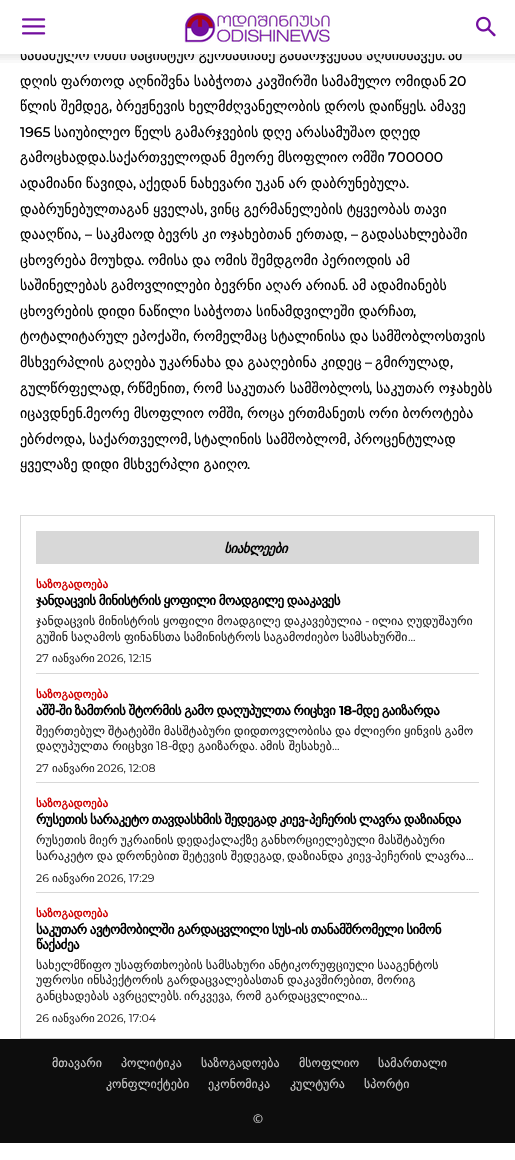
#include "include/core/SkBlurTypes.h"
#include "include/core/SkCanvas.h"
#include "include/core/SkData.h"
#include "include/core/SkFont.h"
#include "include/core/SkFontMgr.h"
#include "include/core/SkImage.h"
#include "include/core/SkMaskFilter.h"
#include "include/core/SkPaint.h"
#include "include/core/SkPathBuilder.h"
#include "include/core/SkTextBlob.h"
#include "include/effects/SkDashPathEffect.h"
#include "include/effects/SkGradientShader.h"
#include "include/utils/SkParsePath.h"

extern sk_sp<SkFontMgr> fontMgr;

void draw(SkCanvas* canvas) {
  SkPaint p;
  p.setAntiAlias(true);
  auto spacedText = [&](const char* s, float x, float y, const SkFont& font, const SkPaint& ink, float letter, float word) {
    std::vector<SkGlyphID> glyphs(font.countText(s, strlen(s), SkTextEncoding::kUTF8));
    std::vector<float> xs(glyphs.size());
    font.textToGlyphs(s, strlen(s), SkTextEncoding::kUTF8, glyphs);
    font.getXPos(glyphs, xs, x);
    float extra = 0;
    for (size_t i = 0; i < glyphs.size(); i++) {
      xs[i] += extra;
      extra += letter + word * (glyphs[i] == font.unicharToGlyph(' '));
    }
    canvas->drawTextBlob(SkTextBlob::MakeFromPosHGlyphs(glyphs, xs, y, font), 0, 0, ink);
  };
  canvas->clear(SK_ColorWHITE);
  canvas->drawImageRect(SkImages::DeferredFromEncodedData(SkData::MakeFromFileName("images/1.png")), SkRect::MakeLTRB(22, 18, 46, 35), SkSamplingOptions());
  canvas->drawImageRect(SkImages::DeferredFromEncodedData(SkData::MakeFromFileName("images/2.png")), SkRect::MakeLTRB(184, 12, 330, 43), SkSamplingOptions());
  canvas->drawImageRect(SkImages::DeferredFromEncodedData(SkData::MakeFromFileName("images/3.png")), SkRect::MakeLTRB(476, 16, 496, 37), SkSamplingOptions());
  p.setStyle(SkPaint::kStroke_Style);
  p.setStrokeWidth(1);
  p.setColor(SkColorSetRGB(216, 216, 216));
  canvas->drawRect(SkRect::MakeLTRB(20.5f, 515.5f, 494.5f, 1038.5f), p);
  p.setStyle(SkPaint::kFill_Style);
  canvas->drawRect(SkRect::MakeLTRB(36, 531, 479, 564), p);
  canvas->drawRect(SkRect::MakeLTRB(36, 673, 479, 674), p);
  canvas->drawRect(SkRect::MakeLTRB(36, 782, 479, 783), p);
  canvas->drawRect(SkRect::MakeLTRB(36, 892, 479, 893), p);
  p.setColor(SkColorSetRGB(13, 13, 13));
  canvas->drawRect(SkRect::MakeLTRB(0, 1039, 515, 1143), p);
  SkFont font1(fontMgr->matchFamilyStyle("DejaVu Sans", SkFontStyle::Normal()), 14);
  font1.setSubpixel(true);
  p.setColor(SK_ColorBLACK);
  spacedText("სამამულო ომში ნაცისტურ გერმანიაზე გამარჯვებას აღნიშნავენ", 20, 60, font1, p, 0, -0.5f);
  SkFont font2(fontMgr->matchFamilyStyle("Montserrat", SkFontStyle(500, SkFontStyle::kNormal_Width, SkFontStyle::kUpright_Slant)), 14);
  font2.setSubpixel(true);
  canvas->drawString(".", 442, 60, font2, p);
  canvas->drawString("ამ", 448, 60, font1, p);
  canvas->drawImageRect(SkImages::DeferredFromEncodedData(SkData::MakeFromFileName("images/4.png")), SkRect::MakeLTRB(0, 54, 515, 63), SkSamplingOptions());
  p.setColor(SK_ColorWHITE);
  canvas->drawRect(SkRect::MakeLTRB(20, 48, 462, 54), p);
  p.setColor(SK_ColorBLACK);
  spacedText("დღის ფართოდ აღნიშვნა საბჭოთა კავშირში სამამულო ომიდან", 20, 86, font1, p, 0, -0.5f);
  canvas->drawString("20", 449, 86, font2, p);
  spacedText("წლის შემდეგ", 20, 111, font1, p, 0, -0.5f);
  canvas->drawString(",", 109, 111, font2, p);
  spacedText("ბრეჟნევის ხელმძღვანელობის დროს დაიწყეს", 116, 111, font1, p, 0, -0.5f);
  canvas->drawString(".", 423, 111, font2, p);
  canvas->drawString("ამავე", 430, 111, font1, p);
  canvas->drawString("1965", 20, 137, font2, p);
  spacedText("საიუბილეო წელს გამარჯვების დღე არასამუშაო დღედ", 54, 137, font1, p, 0, -0.5f);
  canvas->drawString("გამოცხადდა", 20, 162, font1, p);
  canvas->drawString(".", 106, 162, font2, p);
  spacedText("საქართველოდან მეორე მსოფლიო ომში", 109, 162, font1, p, 0, -0.5f);
  canvas->drawString("700000", 388, 162, font2, p);
  spacedText("ადამიანი წავიდა", 20, 188, font1, p, 0, -0.5f);
  canvas->drawString(",", 133, 188, font2, p);
  spacedText("აქედან ნახევარი უკან არ დაბრუნებულა", 139, 188, font1, p, 0, -0.5f);
  canvas->drawString(".", 406, 188, font2, p);
  spacedText("დაბრუნებულთაგან ყველას", 20, 214, font1, p, 0, -0.5f);
  canvas->drawString(",", 204, 214, font2, p);
  spacedText("ვინც გერმანელების ტყვეობას თავი", 210, 214, font1, p, 0, -0.5f);
  canvas->drawString("დააღწია", 20, 239, font1, p);
  canvas->drawString(", –", 78, 239, font2, p);
  canvas->drawString("საკმაოდ", 96, 239, font1, p);
  canvas->drawString("ბევრს", 158, 239, font1, p);
  canvas->drawString("კი", 202, 239, font1, p);
  canvas->drawString("ოჯახებთან", 220, 239, font1, p);
  canvas->drawString("ერთად", 296, 239, font1, p);
  canvas->drawString(", –", 344, 239, font2, p);
  canvas->drawString("გადასახლებაში", 361, 239, font1, p);
  spacedText("ცხოვრება მოუხდა", 20, 265, font1, p, 0, -0.5f);
  canvas->drawString(".", 141, 265, font2, p);
  spacedText("ომისა და ომის შემდგომი პერიოდის ამ", 148, 265, font1, p, 0, -0.5f);
  spacedText("საშინელებას გამოვლილები ბევრნი აღარ არიან", 20, 290, font1, p, 0, -0.5f);
  canvas->drawString(".", 345, 290, font2, p);
  spacedText("ამ ადამიანებს", 352, 290, font1, p, 0, -0.5f);
  spacedText("ცხოვრების დიდი ნაწილი საბჭოთა სინამდვილეში დარჩათ", 20, 316, font1, p, 0, -0.5f);
  canvas->drawString(",", 413, 316, font2, p);
  spacedText("ტოტალიტარულ ეპოქაში", 20, 341, font1, p, 0, -0.5f);
  canvas->drawString(",", 186, 341, font2, p);
  spacedText("რომელმაც სტალინისა და სამშობლოსთვის", 193, 341, font1, p, 0, -0.5f);
  spacedText("მსხვერპლის გაღება უკარნახა და გააღებინა კიდეც", 20, 367, font1, p, 0, -0.5f);
  canvas->drawString("–", 365, 367, font2, p);
  canvas->drawString("გმირულად", 375, 367, font1, p);
  canvas->drawString(",", 450, 367, font2, p);
  canvas->drawString("გულწრფელად", 20, 393, font1, p);
  canvas->drawString(",", 121, 393, font2, p);
  canvas->drawString("რწმენით", 127, 393, font1, p);
  canvas->drawString(",", 186, 393, font2, p);
  canvas->drawString("რომ საკუთარ სამშობლოს", 193, 393, font1, p);
  canvas->drawString(",", 369, 393, font2, p);
  canvas->drawString("საკუთარ ოჯახებს", 376, 393, font1, p);
  canvas->drawString("იცავდნენ", 20, 418, font1, p);
  canvas->drawString(".", 83, 418, font2, p);
  spacedText("მეორე მსოფლიო ომში", 86, 418, font1, p, 0, -0.5f);
  canvas->drawString(",", 240, 418, font2, p);
  spacedText("როცა ერთმანეთს ორი ბოროტება", 247, 418, font1, p, 0, -0.5f);
  canvas->drawString("ებრძოდა", 20, 444, font1, p);
  canvas->drawString(",", 82, 444, font2, p);
  canvas->drawString("საქართველომ", 89, 444, font1, p);
  canvas->drawString(",", 188, 444, font2, p);
  canvas->drawString("სტალინის სამშობლომ", 194, 444, font1, p);
  canvas->drawString(",", 347, 444, font2, p);
  canvas->drawString("პროცენტულად", 354, 444, font1, p);
  spacedText("ყველაზე დიდი მსხვერპლი გაიღო", 20, 469, font1, p, 0, -0.5f);
  canvas->drawString(".", 247, 469, font2, p);
  SkFont font3(fontMgr->matchFamilyStyle("DejaVu Sans", SkFontStyle::BoldItalic()), 13);
  font3.setSubpixel(true);
  spacedText("სიახლეები", 224, 553, font3, p, -0.5f, 0);
  SkFont font4(fontMgr->matchFamilyStyle("DejaVu Sans", SkFontStyle::Bold()), 11);
  font4.setSubpixel(true);
  p.setColor(SkColorSetRGB(206, 0, 0));
  canvas->drawString("საზოგადოება", 36, 588, font4, p);
  SkFont font5(fontMgr->matchFamilyStyle("DejaVu Sans", SkFontStyle::Bold()), 13);
  font5.setSubpixel(true);
  p.setColor(SK_ColorBLACK);
  spacedText("ჯანდაცვის მინისტრის ყოფილი მოადგილე დააკავეს", 36, 605, font5, p, -0.5f, -0.5f);
  SkFont font6(fontMgr->matchFamilyStyle("DejaVu Sans", SkFontStyle::Normal()), 12);
  font6.setSubpixel(true);
  p.setColor(SkColorSetRGB(34, 34, 34));
  spacedText("ჯანდაცვის მინისტრის ყოფილი მოადგილე დაკავებულია", 36, 625, font6, p, 0, -0.5f);
  SkFont font7(fontMgr->matchFamilyStyle("Montserrat", SkFontStyle::Normal()), 12);
  font7.setSubpixel(true);
  canvas->drawString("-", 365, 625, font7, p);
  spacedText("ილია ღუდუშაური", 372, 625, font6, p, 0, -0.5f);
  spacedText("გუშინ საღამოს ფინანსთა სამინისტროს საგამოძიებო სამსახურში", 36, 641, font6, p, 0, -0.75f);
  canvas->drawString("...", 408, 641, font7, p);
  SkFont font8(fontMgr->matchFamilyStyle("Montserrat", SkFontStyle::Normal()), 11);
  font8.setSubpixel(true);
  canvas->drawString("27", 36, 662, font8, p);
  SkFont font9(fontMgr->matchFamilyStyle("DejaVu Sans", SkFontStyle::Normal()), 11);
  font9.setSubpixel(true);
  canvas->drawString("იანვარი", 52, 662, font9, p);
  canvas->drawString("2026, 12:15", 97, 662, font8, p);
  p.setColor(SkColorSetRGB(206, 0, 0));
  canvas->drawString("საზოგადოება", 36, 698, font4, p);
  p.setColor(SK_ColorBLACK);
  spacedText("აშშ", 36, 715, font5, p, -0.5f, 0);
  SkFont font10(fontMgr->matchFamilyStyle("Montserrat", SkFontStyle::Bold()), 13);
  font10.setSubpixel(true);
  spacedText("-", 55, 715, font10, p, -0.5f, 0);
  spacedText("ში ზამთრის შტორმის გამო დაღუპულთა რიცხვი", 59, 715, font5, p, -0.5f, -0.5f);
  spacedText("18-", 339, 715, font10, p, -0.5f, 0);
  spacedText("მდე გაიზარდა", 356, 715, font5, p, -0.5f, -0.5f);
  p.setColor(SkColorSetRGB(34, 34, 34));
  spacedText("შეერთებულ შტატებში მასშტაბური დიდთოვლობისა და ძლიერი ყინვის გამო", 36, 735, font6, p, 0, -0.75f);
  canvas->drawString("დაღუპულთა რიცხვი", 36, 750, font6, p);
  canvas->drawString("18-", 156, 750, font7, p);
  canvas->drawString("მდე გაიზარდა", 172, 750, font6, p);
  canvas->drawString(".", 255, 750, font7, p);
  canvas->drawString("ამის შესახებ", 260, 750, font6, p);
  canvas->drawString("...", 332, 750, font7, p);
  canvas->drawString("27", 36, 772, font8, p);
  canvas->drawString("იანვარი", 52, 772, font9, p);
  canvas->drawString("2026, 12:08", 97, 772, font8, p);
  p.setColor(SkColorSetRGB(206, 0, 0));
  canvas->drawString("საზოგადოება", 36, 807, font4, p);
  p.setColor(SK_ColorBLACK);
  spacedText("რუსეთის სარაკეტო თავდასხმის შედეგად კიევ", 36, 824, font5, p, -0.5f, -0.5f);
  spacedText("-", 304, 824, font10, p, -0.5f, 0);
  spacedText("პეჩერის ლავრა დაზიანდა", 309, 824, font5, p, -0.5f, -0.5f);
  p.setColor(SkColorSetRGB(34, 34, 34));
  spacedText("რუსეთის მიერ უკრაინის დედაქალაქზე განხორციელებული მასშტაბური", 36, 844, font6, p, 0, -0.75f);
  spacedText("სარაკეტო და დრონებით შეტევის შედეგად", 36, 860, font6, p, 0, -0.5f);
  spacedText("დაზიანდა კიევ", 287, 860, font6, p, 0, -0.5f);
  canvas->drawString("-", 371, 860, font7, p);
  spacedText("პეჩერის ლავრა", 375, 860, font6, p, 0, -0.5f);
  canvas->drawString(",", 282, 860, font7, p);
  canvas->drawString("...", 466, 860, font7, p);
  canvas->drawString("26", 36, 882, font8, p);
  canvas->drawString("იანვარი", 52, 882, font9, p);
  canvas->drawString("2026, 17:29", 97, 882, font8, p);
  p.setColor(SkColorSetRGB(206, 0, 0));
  canvas->drawString("საზოგადოება", 36, 917, font4, p);
  p.setColor(SK_ColorBLACK);
  spacedText("საკუთარ ავტომობილში გარდაცვლილი სუს", 36, 934, font5, p, -0.5f, -0.5f);
  spacedText("-", 291, 934, font10, p, -0.5f, 0);
  spacedText("ის თანამშრომელი სიმონ", 295, 934, font5, p, -0.5f, -0.5f);
  spacedText("წაქაძეა", 36, 949, font5, p, -0.5f, 0);
  p.setColor(SkColorSetRGB(34, 34, 34));
  spacedText("სახელმწიფო უსაფრთხოების სამსახური ანტიკორუფციული სააგენტოს", 36, 969, font6, p, 0, -0.75f);
  spacedText("უფროსი ინსპექტორის გარდაცვალებასთან დაკავშირებით", 36, 984, font6, p, 0, -0.5f);
  canvas->drawString(",", 371, 984, font7, p);
  canvas->drawString("მორიგ", 377, 984, font6, p);
  canvas->drawString("განცხადებას ავრცელებს", 36, 1000, font6, p);
  canvas->drawString(".", 179, 1000, font7, p);
  canvas->drawString("ირკვევა", 184, 1000, font6, p);
  canvas->drawString(",", 230, 1000, font7, p);
  canvas->drawString("რომ გარდაცვლილია", 236, 1000, font6, p);
  canvas->drawString("...", 360, 1000, font7, p);
  canvas->drawString("26", 36, 1022, font8, p);
  canvas->drawString("იანვარი", 52, 1022, font9, p);
  canvas->drawString("2026, 17:04", 97, 1022, font8, p);
  p.setColor(SkColorSetRGB(204, 204, 204));
  canvas->drawString("მთავარი", 52, 1067, font6, p);
  canvas->drawString("პოლიტიკა", 121, 1067, font6, p);
  canvas->drawString("საზოგადოება", 201, 1067, font6, p);
  canvas->drawString("მსოფლიო", 299, 1067, font6, p);
  canvas->drawString("სამართალი", 378, 1067, font6, p);
  canvas->drawString("კონფლიქტები", 106, 1088, font6, p);
  canvas->drawString("ეკონომიკა", 208, 1088, font6, p);
  canvas->drawString("კულტურა", 290, 1088, font6, p);
  canvas->drawString("სპორტი", 364, 1088, font6, p);
  SkFont font11(fontMgr->matchFamilyStyle("Open Sans", SkFontStyle::Normal()), 12);
  font11.setSubpixel(true);
  canvas->drawString("©", 253, 1123, font11, p);
}
